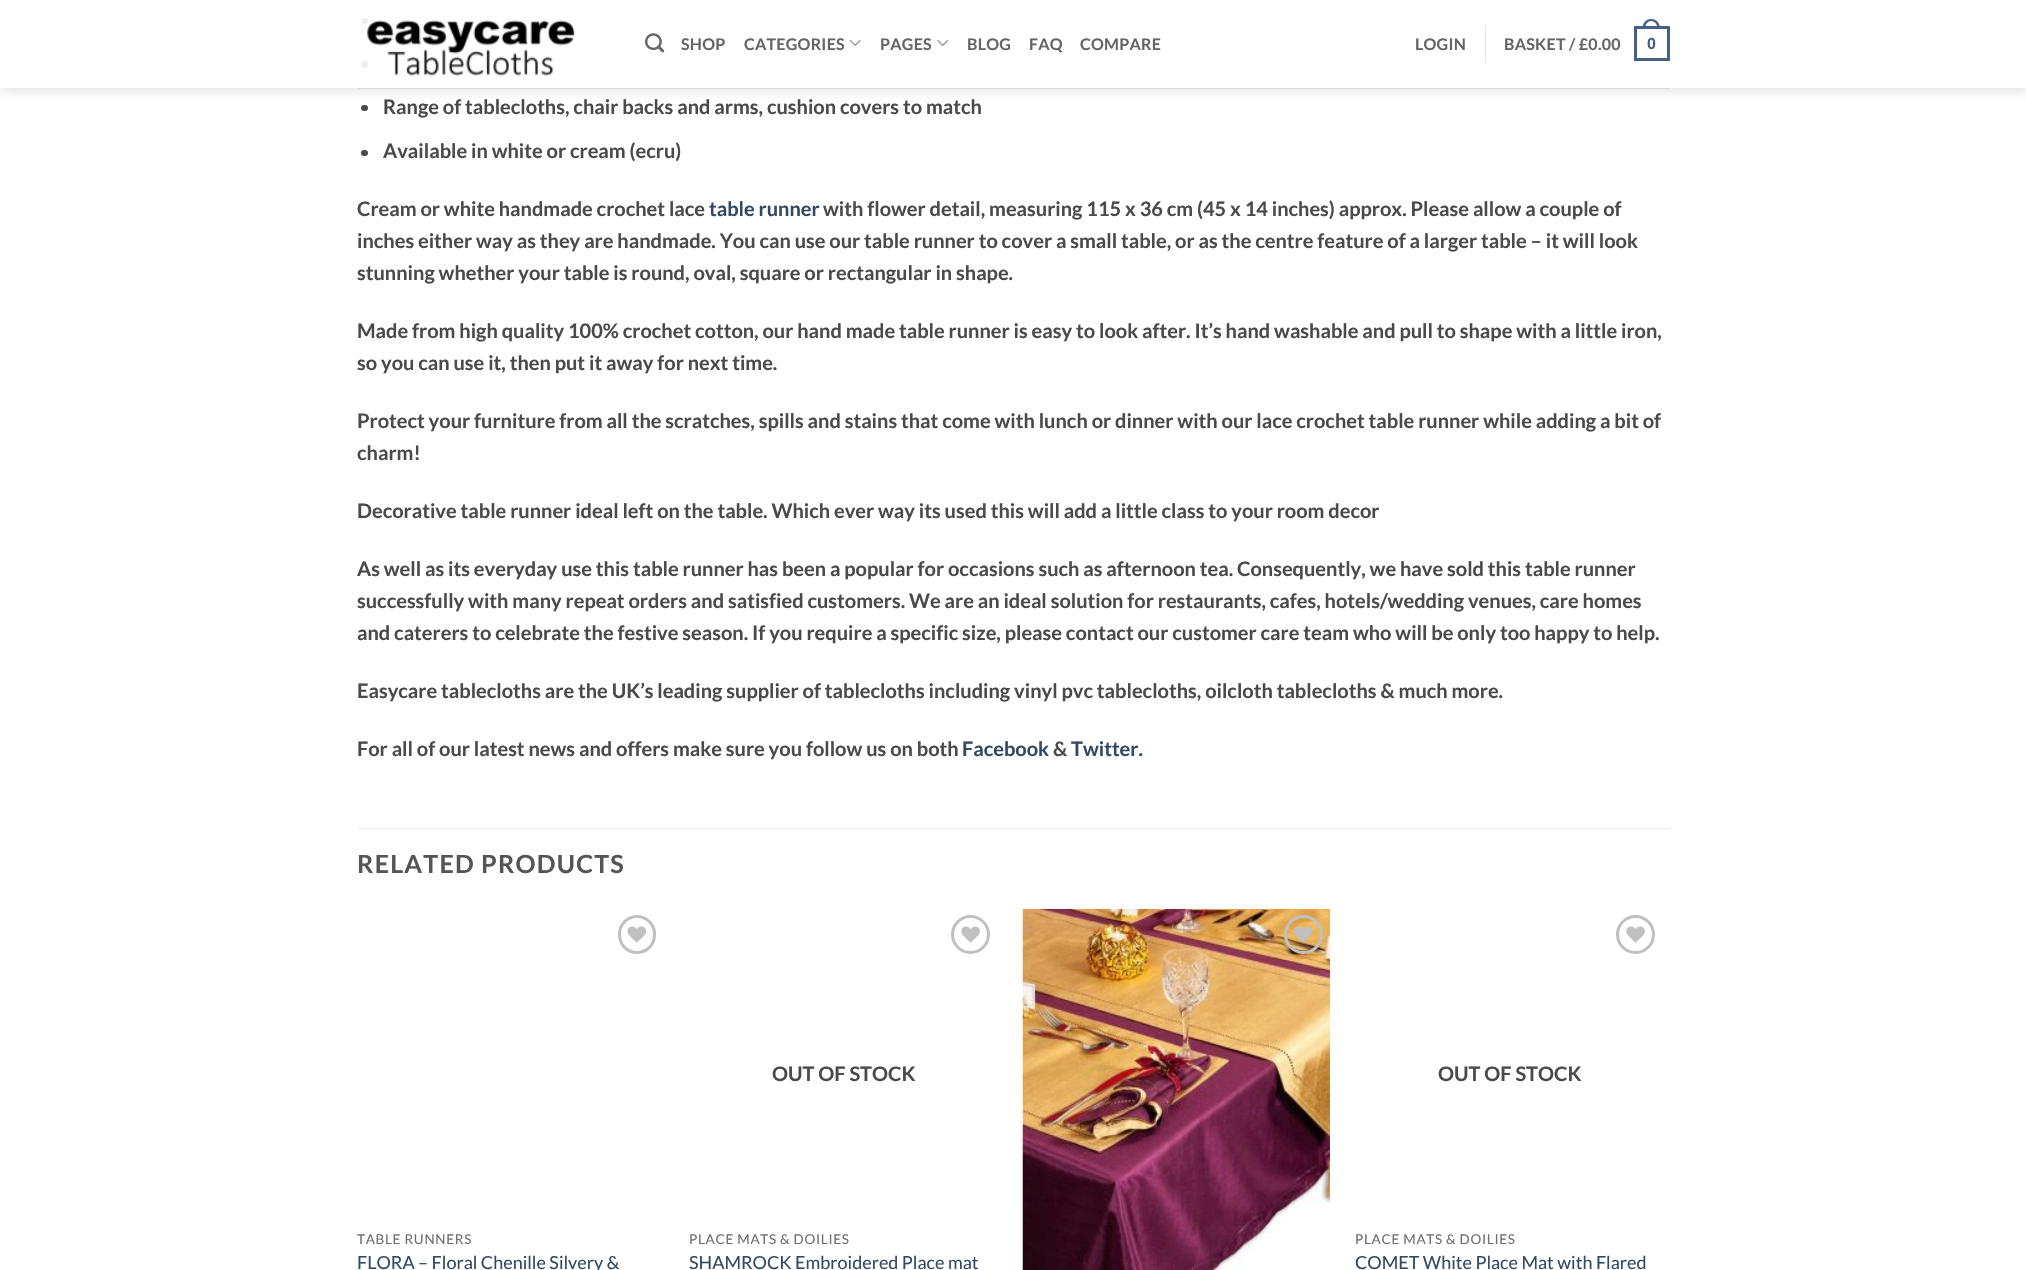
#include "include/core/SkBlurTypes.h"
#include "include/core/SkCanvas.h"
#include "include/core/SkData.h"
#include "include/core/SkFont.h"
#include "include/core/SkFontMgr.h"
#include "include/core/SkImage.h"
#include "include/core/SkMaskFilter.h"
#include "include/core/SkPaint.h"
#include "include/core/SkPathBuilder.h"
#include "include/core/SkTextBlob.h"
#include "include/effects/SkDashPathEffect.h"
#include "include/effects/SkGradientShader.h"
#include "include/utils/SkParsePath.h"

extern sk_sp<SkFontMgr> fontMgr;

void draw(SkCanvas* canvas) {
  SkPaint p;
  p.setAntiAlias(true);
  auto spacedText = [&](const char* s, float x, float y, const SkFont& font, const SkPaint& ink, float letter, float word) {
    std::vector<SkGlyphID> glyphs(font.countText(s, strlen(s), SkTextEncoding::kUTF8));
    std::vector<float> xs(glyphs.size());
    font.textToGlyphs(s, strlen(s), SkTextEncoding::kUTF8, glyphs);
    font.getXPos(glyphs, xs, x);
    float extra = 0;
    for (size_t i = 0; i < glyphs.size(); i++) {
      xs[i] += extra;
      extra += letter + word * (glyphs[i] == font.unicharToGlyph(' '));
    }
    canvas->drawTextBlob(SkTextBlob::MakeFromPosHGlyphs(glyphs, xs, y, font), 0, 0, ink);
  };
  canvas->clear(SK_ColorWHITE);
  p.setColor(SkColorSetRGB(74, 74, 74));
  canvas->drawRoundRect(SkRect::MakeLTRB(361, 18, 368, 24), 3, 3, p);
  canvas->drawCircle(364.5f, 64.5f, 3.5f, p);
  canvas->drawRoundRect(SkRect::MakeLTRB(361, 105, 368, 111), 3, 3, p);
  canvas->save();
  canvas->clipPath(SkPathBuilder(SkPathFillType::kEvenOdd).moveTo(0, 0).lineTo(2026, 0).lineTo(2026, 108).lineTo(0, 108).close().moveTo(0, 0).lineTo(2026, 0).lineTo(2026, 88).lineTo(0, 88).close().detach(), true);
  p.setColor(SkColorSetARGB(38, 0, 0, 0));
  p.setMaskFilter(SkMaskFilter::MakeBlur(kNormal_SkBlurStyle, 6));
  canvas->drawRect(SkRect::MakeLTRB(1, 1, 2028, 89), p);
  p.setMaskFilter(nullptr);
  canvas->restore();
  p.setColor(SkColorSetARGB(230, 255, 255, 255));
  canvas->drawRect(SkRect::MakeLTRB(0, 18, 2026, 88), p);
  canvas->drawImageRect(SkImages::DeferredFromEncodedData(SkData::MakeFromFileName("images/1.png")), SkRect::MakeLTRB(367, 20, 575, 77), SkSamplingOptions());
  canvas->drawImageRect(SkImages::DeferredFromEncodedData(SkData::MakeFromFileName("images/2.png")), SkRect::MakeLTRB(645, 33, 665, 53), SkSamplingOptions());
  canvas->drawImageRect(SkImages::DeferredFromEncodedData(SkData::MakeFromFileName("images/3.png")), SkRect::MakeLTRB(849, 39, 861, 47), SkSamplingOptions());
  canvas->drawImageRect(SkImages::DeferredFromEncodedData(SkData::MakeFromFileName("images/4.png")), SkRect::MakeLTRB(937, 39, 949, 47), SkSamplingOptions());
  p.setColor(SkColorSetRGB(230, 230, 230));
  canvas->drawRect(SkRect::MakeLTRB(1485, 25, 1486, 63), p);
  p.setStyle(SkPaint::kStroke_Style);
  p.setStrokeWidth(3);
  p.setColor(SkColorSetRGB(68, 96, 132));
  canvas->drawRect(SkRect::MakeLTRB(1635.5f, 27.5f, 1668.5f, 59.5f), p);
  p.setStyle(SkPaint::kFill_Style);
  canvas->drawPath(SkPathBuilder(SkPathFillType::kEvenOdd).moveTo(1651, 19).cubicTo(1657, 19, 1660, 23.5f, 1660, 29).lineTo(1642.5f, 29).cubicTo(1642.5f, 23.5f, 1645.5f, 19, 1651, 19).close().moveTo(1651, 21).cubicTo(1655.5f, 21, 1657.5f, 25, 1657.5f, 29).lineTo(1645, 29).cubicTo(1645, 25, 1647, 21, 1651, 21).close().detach(), p);
  p.setColor(SkColorSetRGB(219, 219, 219));
  canvas->drawRect(SkRect::MakeLTRB(358, 88, 1670, 89), p);
  p.setColor(SkColorSetRGB(74, 74, 74));
  canvas->drawRoundRect(SkRect::MakeLTRB(361, 150, 368, 156), 3, 3, p);
  p.setColor(SkColorSetRGB(236, 236, 236));
  canvas->drawRect(SkRect::MakeLTRB(358, 828, 1670, 829), p);
  p.setStyle(SkPaint::kStroke_Style);
  p.setColor(SkColorSetRGB(192, 192, 192));
  canvas->drawRoundRect(SkRect::MakeLTRB(619.5f, 916.5f, 654.5f, 952.5f), 17.5f, 17.5f, p);
  canvas->drawImageRect(SkImages::DeferredFromEncodedData(SkData::MakeFromFileName("images/5.png")), SkRect::MakeLTRB(627, 926, 647, 943), SkSamplingOptions());
  canvas->drawCircle(970.5f, 934.5f, 18, p);
  canvas->drawImageRect(SkImages::DeferredFromEncodedData(SkData::MakeFromFileName("images/6.png")), SkRect::MakeLTRB(961, 926, 980, 943), SkSamplingOptions());
  canvas->drawImageRect(SkImages::DeferredFromEncodedData(SkData::MakeFromFileName("images/7.png")), SkRect::MakeLTRB(1022, 908, 1330, 1270), SkSamplingOptions());
  canvas->drawCircle(1303.5f, 934.5f, 18, p);
  canvas->drawImageRect(SkImages::DeferredFromEncodedData(SkData::MakeFromFileName("images/8.png")), SkRect::MakeLTRB(1293, 926, 1313, 943), SkSamplingOptions());
  canvas->drawCircle(1635.5f, 934.5f, 18, p);
  canvas->drawImageRect(SkImages::DeferredFromEncodedData(SkData::MakeFromFileName("images/6.png")), SkRect::MakeLTRB(1626, 926, 1645, 943), SkSamplingOptions());
  SkFont font1(fontMgr->matchFamilyStyle("Lato", SkFontStyle::Bold()), 16);
  font1.setSubpixel(true);
  p.setStyle(SkPaint::kFill_Style);
  p.setColor(SkColorSetRGB(101, 101, 101));
  spacedText("SHOP", 681, 50, font1, p, 0.25f, 0);
  spacedText("CATEGORIES", 744, 50, font1, p, 0.25f, 0);
  spacedText("PAGES", 880, 50, font1, p, 0.25f, 0);
  spacedText("BLOG", 967, 50, font1, p, 0.25f, 0);
  spacedText("FAQ", 1029, 50, font1, p, 0.25f, 0);
  spacedText("COMPARE", 1080, 50, font1, p, 0.25f, 0);
  spacedText("LOGIN", 1415, 50, font1, p, 0.25f, 0);
  spacedText("BASKET / £0.00", 1504, 50, font1, p, 0.25f, 0);
  SkFont font2(fontMgr->matchFamilyStyle("Liberation Sans", SkFontStyle::Bold()), 16);
  font2.setSubpixel(true);
  p.setColor(SkColorSetRGB(68, 96, 132));
  spacedText("0", 1647, 49, font2, p, 0.25f, 0);
  SkFont font3(fontMgr->matchFamilyStyle("Lato", SkFontStyle::Bold()), 20);
  font3.setSubpixel(true);
  p.setColor(SkColorSetRGB(74, 74, 74));
  canvas->drawString("Range of tablecloths, chair backs and arms, cushion covers to match", 383, 114, font3, p);
  canvas->drawString("Available in white or cream (ecru)", 383, 158, font3, p);
  canvas->drawString("Cream or white handmade crochet lace", 357, 216, font3, p);
  p.setColor(SkColorSetRGB(51, 72, 98));
  canvas->drawString("table runner", 709, 216, font3, p);
  p.setColor(SkColorSetRGB(74, 74, 74));
  canvas->drawString("with flower detail, measuring 115 x 36 cm (45 x 14 inches) approx. Please allow a couple of", 823, 216, font3, p);
  canvas->drawString("inches either way as they are handmade. You can use our table runner to cover a small table, or as the centre feature of a larger table – it will look", 357, 248, font3, p);
  canvas->drawString("stunning whether your table is round, oval, square or rectangular in shape.", 357, 280, font3, p);
  canvas->drawString("Made from high quality 100% crochet cotton, our hand made table runner is easy to look after. It’s hand washable and pull to shape with a little iron,", 357, 338, font3, p);
  canvas->drawString("so you can use it, then put it away for next time.", 357, 370, font3, p);
  canvas->drawString("Protect your furniture from all the scratches, spills and stains that come with lunch or dinner with our lace crochet table runner while adding a bit of", 357, 428, font3, p);
  canvas->drawString("charm!", 357, 460, font3, p);
  canvas->drawString("Decorative table runner ideal left on the table. Which ever way its used this will add a little class to your room decor", 357, 518, font3, p);
  canvas->drawString("As well as its everyday use this table runner has been a popular for occasions such as afternoon tea. Consequently, we have sold this table runner", 357, 576, font3, p);
  canvas->drawString("successfully with many repeat orders and satisfied customers. We are an ideal solution for restaurants, cafes, hotels/wedding venues, care homes", 357, 608, font3, p);
  canvas->drawString("and caterers to celebrate the festive season. If you require a specific size, please contact our customer care team who will be only too happy to help.", 357, 640, font3, p);
  canvas->drawString("Easycare tablecloths are the UK’s leading supplier of tablecloths including vinyl pvc tablecloths, oilcloth tablecloths & much more.", 357, 698, font3, p);
  canvas->drawString("For all of our latest news and offers make sure you follow us on both", 357, 756, font3, p);
  p.setColor(SkColorSetRGB(51, 72, 98));
  canvas->drawString("Facebook", 962, 756, font3, p);
  p.setColor(SkColorSetRGB(74, 74, 74));
  canvas->drawString("&", 1053, 756, font3, p);
  p.setColor(SkColorSetRGB(51, 72, 98));
  canvas->drawString("Twitter.", 1071, 756, font3, p);
  SkFont font4(fontMgr->matchFamilyStyle("Lato", SkFontStyle::Bold()), 25);
  font4.setSubpixel(true);
  p.setColor(SkColorSetRGB(85, 85, 85));
  spacedText("RELATED PRODUCTS", 357, 873, font4, p, 1.25f, 0);
  SkFont font5(fontMgr->matchFamilyStyle("Lato", SkFontStyle::Normal()), 13.5f);
  font5.setSubpixel(true);
  p.setColor(SkColorSetRGB(110, 110, 110));
  spacedText("TABLE RUNNERS", 357, 1244, font5, p, 0.7f, 0);
  SkFont font6(fontMgr->matchFamilyStyle("Lato", SkFontStyle::Normal()), 18);
  font6.setSubpixel(true);
  p.setColor(SkColorSetRGB(51, 72, 98));
  canvas->drawString("FLORA – Floral Chenille Silvery &", 357, 1269, font6, p);
  p.setColor(SkColorSetRGB(74, 74, 74));
  canvas->drawString("OUT OF STOCK", 772, 1081, font3, p);
  p.setColor(SkColorSetRGB(110, 110, 110));
  spacedText("PLACE MATS & DOILIES", 689, 1244, font5, p, 0.7f, 0);
  p.setColor(SkColorSetRGB(51, 72, 98));
  canvas->drawString("SHAMROCK Embroidered Place mat", 689, 1269, font6, p);
  p.setColor(SkColorSetRGB(74, 74, 74));
  canvas->drawString("OUT OF STOCK", 1438, 1081, font3, p);
  p.setColor(SkColorSetRGB(110, 110, 110));
  spacedText("PLACE MATS & DOILIES", 1355, 1244, font5, p, 0.7f, 0);
  p.setColor(SkColorSetRGB(51, 72, 98));
  canvas->drawString("COMET White Place Mat with Flared", 1355, 1269, font6, p);
}
